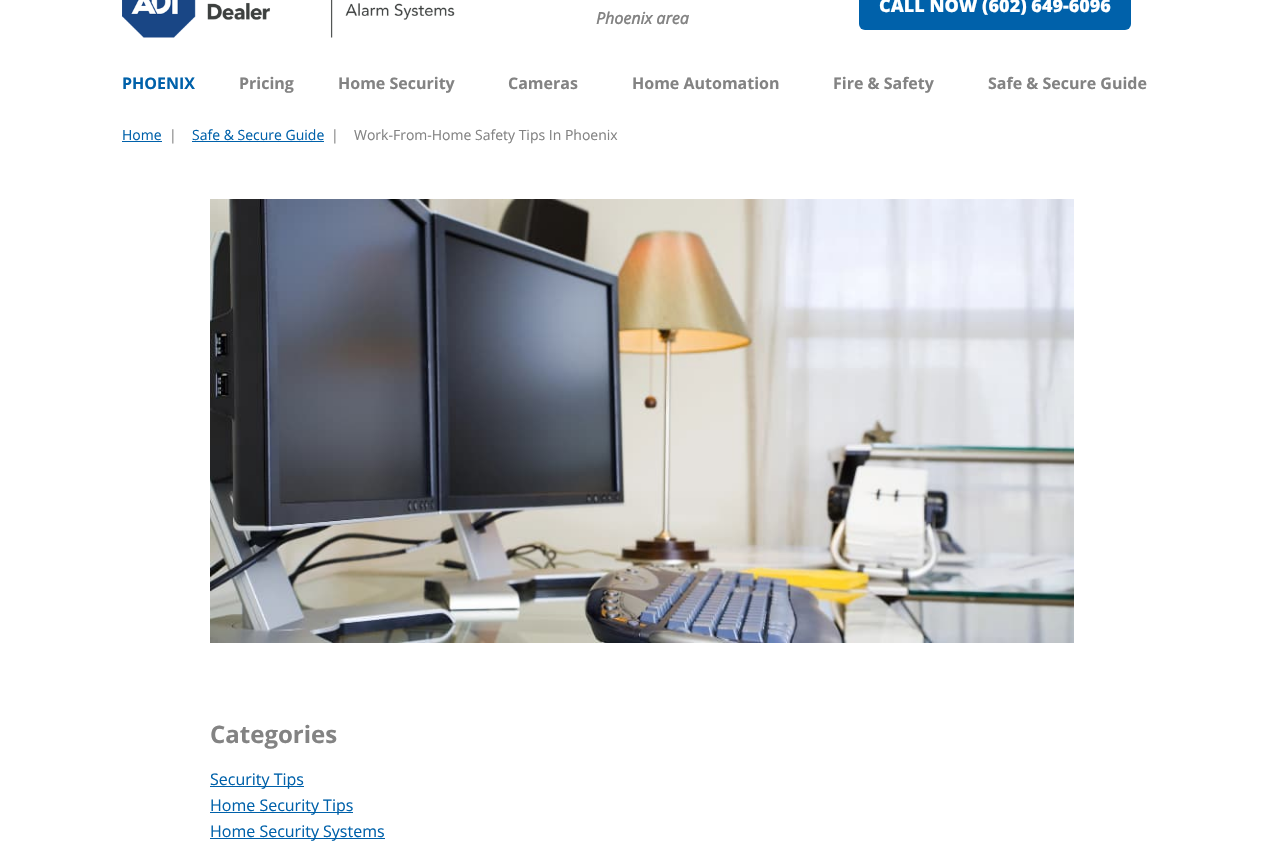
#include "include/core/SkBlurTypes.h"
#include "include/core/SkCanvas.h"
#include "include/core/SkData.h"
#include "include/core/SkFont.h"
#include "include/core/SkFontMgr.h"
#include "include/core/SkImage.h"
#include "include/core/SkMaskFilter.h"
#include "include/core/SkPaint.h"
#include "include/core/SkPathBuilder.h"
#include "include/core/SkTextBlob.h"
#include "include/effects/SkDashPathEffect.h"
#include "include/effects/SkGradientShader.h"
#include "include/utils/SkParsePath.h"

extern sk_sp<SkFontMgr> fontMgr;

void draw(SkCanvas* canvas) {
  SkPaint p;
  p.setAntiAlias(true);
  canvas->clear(SK_ColorWHITE);
  canvas->drawImageRect(SkImages::DeferredFromEncodedData(SkData::MakeFromFileName("images/1.png")), SkRect::MakeLTRB(122, 0, 455, 38), SkSamplingOptions());
  p.setColor(SkColorSetRGB(0, 97, 170));
  canvas->drawRoundRect(SkRect::MakeLTRB(859, -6, 1131, 30), 6, 6, p);
  canvas->drawRect(SkRect::MakeLTRB(122, 141, 162, 142), p);
  canvas->drawRect(SkRect::MakeLTRB(192, 141, 324, 142), p);
  canvas->drawImageRect(SkImages::DeferredFromEncodedData(SkData::MakeFromFileName("images/2.png")), SkRect::MakeLTRB(210, 199, 1074, 643), SkSamplingOptions());
  canvas->drawRect(SkRect::MakeLTRB(210, 786, 304, 787), p);
  canvas->drawRect(SkRect::MakeLTRB(210, 812, 353, 813), p);
  canvas->drawRect(SkRect::MakeLTRB(210, 838, 385, 839), p);
  SkFont font1(fontMgr->matchFamilyStyle("Open Sans", SkFontStyle(800, SkFontStyle::kNormal_Width, SkFontStyle::kUpright_Slant)), 18);
  font1.setSubpixel(true);
  p.setColor(SK_ColorWHITE);
  canvas->drawString("CALL NOW (602) 649-6096", 879, 12, font1, p);
  SkFont font2(fontMgr->matchFamilyStyle("Open Sans", SkFontStyle::BoldItalic()), 16);
  font2.setSubpixel(true);
  p.setColor(SkColorSetRGB(131, 131, 131));
  canvas->drawString("Phoenix area", 596, 24, font2, p);
  SkFont font3(fontMgr->matchFamilyStyle("Open Sans", SkFontStyle::Bold()), 16);
  font3.setSubpixel(true);
  p.setColor(SkColorSetRGB(0, 97, 170));
  canvas->drawString("PHOENIX", 122, 89, font3, p);
  p.setColor(SkColorSetRGB(131, 131, 131));
  canvas->drawString("Pricing", 239, 89, font3, p);
  canvas->drawString("Home Security", 338, 89, font3, p);
  canvas->drawString("Cameras", 508, 89, font3, p);
  canvas->drawString("Home Automation", 632, 89, font3, p);
  canvas->drawString("Fire & Safety", 833, 89, font3, p);
  canvas->drawString("Safe & Secure Guide", 988, 89, font3, p);
  SkFont font4(fontMgr->matchFamilyStyle("Open Sans", SkFontStyle::Normal()), 14);
  font4.setSubpixel(true);
  p.setColor(SkColorSetRGB(0, 97, 170));
  canvas->drawString("Home", 122, 140, font4, p);
  p.setColor(SkColorSetRGB(131, 131, 131));
  canvas->drawString("|", 169, 140, font4, p);
  p.setColor(SkColorSetRGB(0, 97, 170));
  canvas->drawString("Safe & Secure Guide", 192, 140, font4, p);
  p.setColor(SkColorSetRGB(131, 131, 131));
  canvas->drawString("|", 331, 140, font4, p);
  canvas->drawString("Work-From-Home Safety Tips In Phoenix", 354, 140, font4, p);
  SkFont font5(fontMgr->matchFamilyStyle("Open Sans", SkFontStyle::Bold()), 24);
  font5.setSubpixel(true);
  canvas->drawString("Categories", 210, 743, font5, p);
  SkFont font6(fontMgr->matchFamilyStyle("Open Sans", SkFontStyle::Normal()), 16);
  font6.setSubpixel(true);
  p.setColor(SkColorSetRGB(0, 97, 170));
  canvas->drawString("Security Tips", 210, 785, font6, p);
  canvas->drawString("Home Security Tips", 210, 811, font6, p);
  canvas->drawString("Home Security Systems", 210, 837, font6, p);
}
